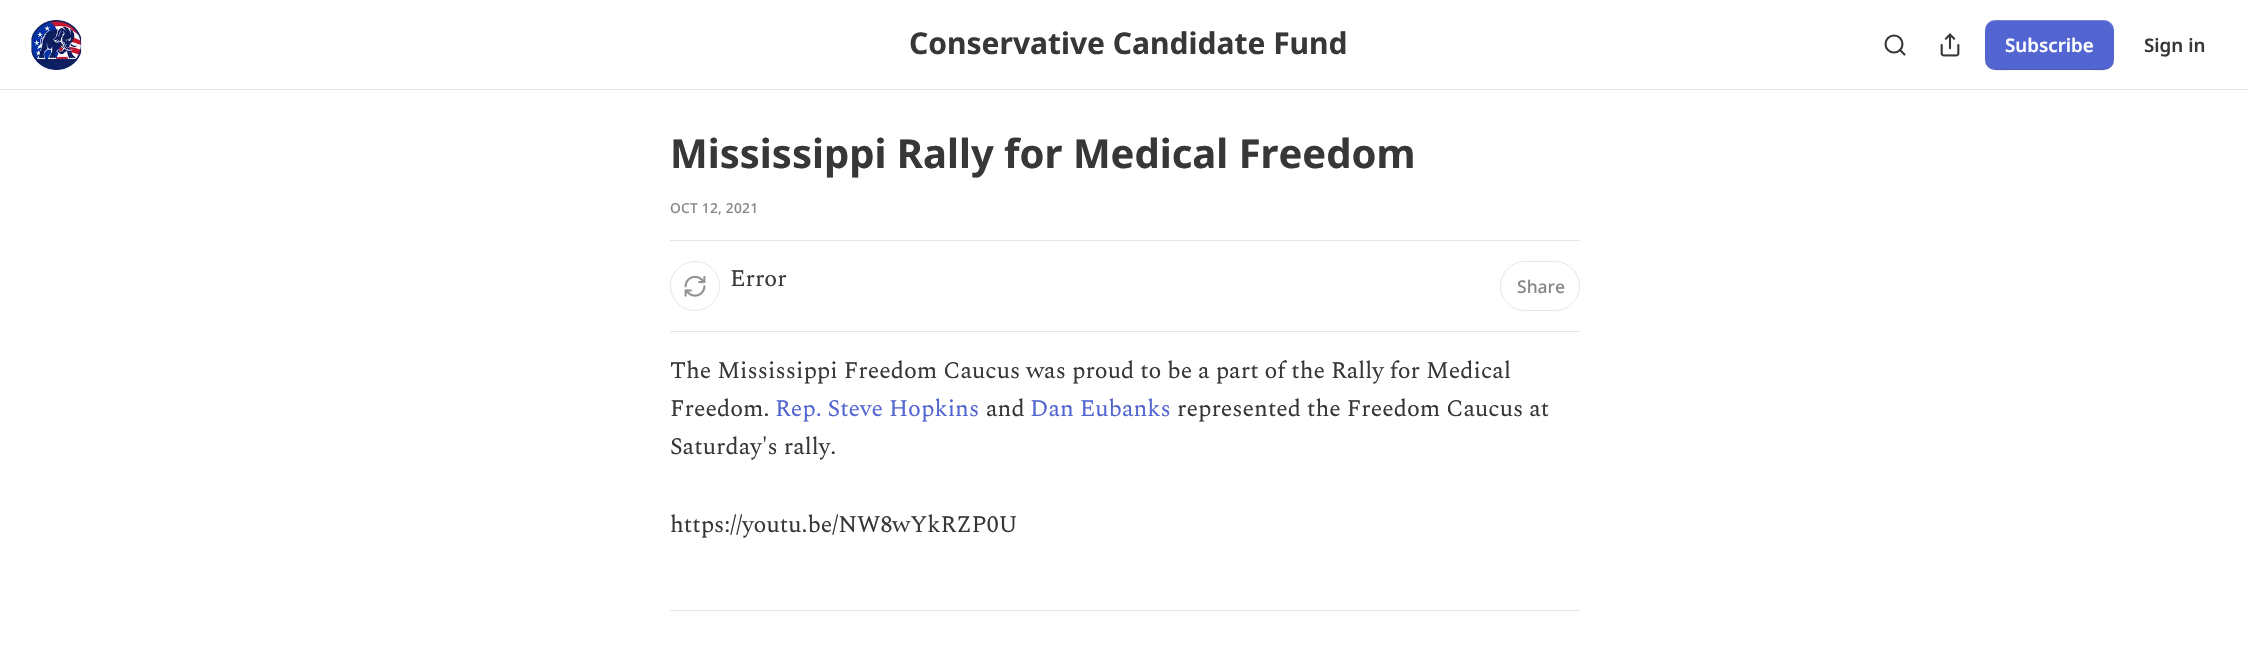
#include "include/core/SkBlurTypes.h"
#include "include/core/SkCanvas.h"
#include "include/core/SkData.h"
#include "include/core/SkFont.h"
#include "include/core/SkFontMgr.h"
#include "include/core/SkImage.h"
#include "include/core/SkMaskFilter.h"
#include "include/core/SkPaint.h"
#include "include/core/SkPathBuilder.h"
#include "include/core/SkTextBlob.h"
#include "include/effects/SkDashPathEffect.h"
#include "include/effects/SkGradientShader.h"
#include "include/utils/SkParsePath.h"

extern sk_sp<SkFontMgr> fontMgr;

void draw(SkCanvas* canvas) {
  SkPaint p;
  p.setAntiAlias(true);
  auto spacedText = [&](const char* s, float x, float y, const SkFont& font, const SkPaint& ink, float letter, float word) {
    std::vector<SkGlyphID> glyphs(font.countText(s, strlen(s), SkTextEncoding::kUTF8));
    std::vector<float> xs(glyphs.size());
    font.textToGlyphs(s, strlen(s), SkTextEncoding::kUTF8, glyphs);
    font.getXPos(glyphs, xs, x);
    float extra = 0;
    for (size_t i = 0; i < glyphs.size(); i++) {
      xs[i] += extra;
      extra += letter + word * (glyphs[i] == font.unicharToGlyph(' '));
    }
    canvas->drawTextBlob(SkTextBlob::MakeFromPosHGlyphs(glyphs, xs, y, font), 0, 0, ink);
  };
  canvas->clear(SK_ColorWHITE);
  p.setColor(SkColorSetRGB(230, 230, 230));
  canvas->drawRect(SkRect::MakeLTRB(0, 89, 2249, 90), p);
  canvas->drawImageRect(SkImages::DeferredFromEncodedData(SkData::MakeFromFileName("images/1.png")), SkRect::MakeLTRB(31, 20, 82, 70), SkSamplingOptions());
  p.setStyle(SkPaint::kStroke_Style);
  p.setStrokeWidth(2.1f);
  p.setColor(SkColorSetRGB(54, 55, 55));
  canvas->drawCircle(1894, 44, 8.5f, p);
  p.setStrokeCap(SkPaint::kRound_Cap);
  p.setStrokeJoin(SkPaint::kRound_Join);
  canvas->drawPath(SkPathBuilder().moveTo(1904.5f, 54.5f).lineTo(1900, 50).detach(), p);
  canvas->drawImageRect(SkImages::DeferredFromEncodedData(SkData::MakeFromFileName("images/2.png")), SkRect::MakeLTRB(1940, 33, 1960, 57), SkSamplingOptions());
  p.setStyle(SkPaint::kFill_Style);
  p.setColor(SkColorSetRGB(83, 101, 208));
  canvas->drawRoundRect(SkRect::MakeLTRB(1985, 20, 2114, 70), 10, 10, p);
  p.setColor(SkColorSetARGB(26, 0, 0, 0));
  canvas->drawPath(SkPathBuilder().moveTo(1985, 59).cubicTo(1985, 74, 2003, 70, 2013, 70).lineTo(2086, 70).cubicTo(2096, 70, 2114, 74, 2114, 59).cubicTo(2114, 64, 2109, 69, 2104, 69).lineTo(1995, 69).cubicTo(1989, 69, 1985, 64, 1985, 59).close().detach(), p);
  p.setColor(SkColorSetARGB(51, 255, 255, 255));
  canvas->drawPath(SkPathBuilder().moveTo(1995, 21).lineTo(2104, 21).cubicTo(2109, 21, 2114, 26, 2114, 31).cubicTo(2114, 16, 2096, 20, 2086, 20).lineTo(2013, 20).cubicTo(2003, 20, 1985, 16, 1985, 31).cubicTo(1985, 26, 1989, 21, 1995, 21).close().detach(), p);
  p.setColor(SkColorSetRGB(230, 230, 230));
  canvas->drawRect(SkRect::MakeLTRB(670, 240, 1580, 241), p);
  canvas->drawRect(SkRect::MakeLTRB(670, 331, 1580, 332), p);
  p.setStyle(SkPaint::kStroke_Style);
  p.setStrokeWidth(1);
  p.setStrokeCap(SkPaint::kButt_Cap);
  p.setStrokeJoin(SkPaint::kMiter_Join);
  canvas->drawCircle(695, 286, 24.5f, p);
  canvas->drawImageRect(SkImages::DeferredFromEncodedData(SkData::MakeFromFileName("images/3.png")), SkRect::MakeLTRB(684, 275, 706, 297), SkSamplingOptions());
  canvas->drawRoundRect(SkRect::MakeLTRB(1500.5f, 261.5f, 1579.5f, 310.5f), 24.5f, 24.5f, p);
  p.setStyle(SkPaint::kFill_Style);
  canvas->drawRect(SkRect::MakeLTRB(670, 610, 1580, 611), p);
  SkFont font1(fontMgr->matchFamilyStyle("Noto Sans", SkFontStyle::Bold()), 30);
  font1.setSubpixel(true);
  p.setColor(SkColorSetRGB(54, 55, 55));
  canvas->drawString("Conservative Candidate Fund", 909, 54, font1, p);
  SkFont font2(fontMgr->matchFamilyStyle("Noto Sans", SkFontStyle(600, SkFontStyle::kNormal_Width, SkFontStyle::kUpright_Slant)), 18.75f);
  font2.setSubpixel(true);
  p.setColor(SK_ColorWHITE);
  canvas->drawString("Subscribe", 2005, 52, font2, p);
  p.setColor(SkColorSetRGB(54, 55, 55));
  canvas->drawString("Sign in", 2144, 52, font2, p);
  SkFont font3(fontMgr->matchFamilyStyle("Noto Sans", SkFontStyle::Bold()), 40);
  font3.setSubpixel(true);
  canvas->drawString("Mississippi Rally for Medical Freedom", 670, 168, font3, p);
  SkFont font4(fontMgr->matchFamilyStyle("Noto Sans", SkFontStyle(500, SkFontStyle::kNormal_Width, SkFontStyle::kUpright_Slant)), 13.75f);
  font4.setSubpixel(true);
  p.setColor(SkColorSetRGB(134, 135, 135));
  spacedText("OCT 12, 2021", 670, 213, font4, p, 0.25f, 0);
  SkFont font5(fontMgr->matchFamilyStyle("Spectral", SkFontStyle::Normal()), 23.75f);
  font5.setSubpixel(true);
  p.setColor(SkColorSetRGB(54, 55, 55));
  canvas->drawString("Error", 730, 286, font5, p);
  SkFont font6(fontMgr->matchFamilyStyle("Noto Sans", SkFontStyle(500, SkFontStyle::kNormal_Width, SkFontStyle::kUpright_Slant)), 17.5f);
  font6.setSubpixel(true);
  p.setColor(SkColorSetRGB(134, 135, 135));
  canvas->drawString("Share", 1517, 293, font6, p);
  p.setColor(SkColorSetRGB(54, 55, 55));
  canvas->drawString("The Mississippi Freedom Caucus was proud to be a part of the Rally for Medical", 670, 378, font5, p);
  canvas->drawString("Freedom.", 670, 416, font5, p);
  p.setColor(SkColorSetRGB(83, 101, 208));
  canvas->drawString("Rep. Steve Hopkins", 775, 416, font5, p);
  p.setColor(SkColorSetRGB(54, 55, 55));
  canvas->drawString("and", 986, 416, font5, p);
  p.setColor(SkColorSetRGB(83, 101, 208));
  canvas->drawString("Dan Eubanks", 1030, 416, font5, p);
  p.setColor(SkColorSetRGB(54, 55, 55));
  canvas->drawString("represented the Freedom Caucus at", 1177, 416, font5, p);
  canvas->drawString("Saturday's rally.", 670, 454, font5, p);
  canvas->drawString("https://youtu.be/NW8wYkRZP0U", 670, 532, font5, p);
}
